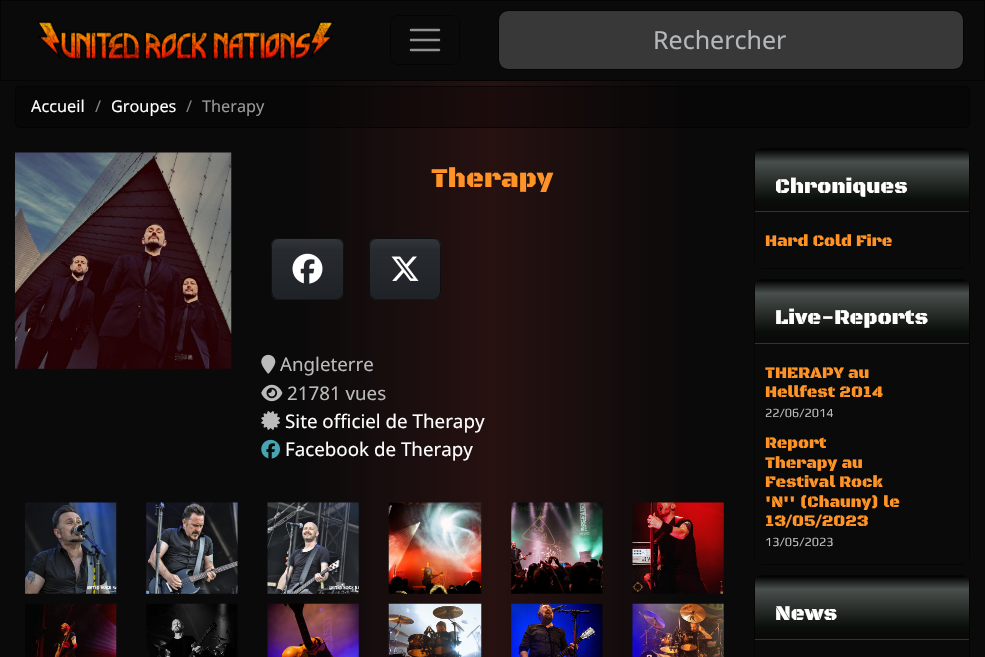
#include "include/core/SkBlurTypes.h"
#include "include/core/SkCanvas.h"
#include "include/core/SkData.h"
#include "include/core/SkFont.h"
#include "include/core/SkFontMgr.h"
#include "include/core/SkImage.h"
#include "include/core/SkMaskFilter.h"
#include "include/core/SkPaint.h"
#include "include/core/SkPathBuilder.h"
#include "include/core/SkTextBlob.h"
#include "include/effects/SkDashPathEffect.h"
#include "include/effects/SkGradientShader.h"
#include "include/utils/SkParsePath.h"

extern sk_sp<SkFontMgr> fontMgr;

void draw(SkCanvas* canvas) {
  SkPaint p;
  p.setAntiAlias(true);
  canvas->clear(SK_ColorWHITE);
  {
    const SkColor colors[] = {SkColorSetRGB(10, 10, 10), SkColorSetRGB(10, 10, 10), SkColorSetRGB(39, 17, 17), SkColorSetRGB(10, 10, 10), SkColorSetRGB(10, 10, 10)};
    const float stops[] = {0, 0.3f, 0.5f, 0.7f, 1};
    const SkPoint ends[] = {{0, 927}, {985, 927}};
    p.setShader(SkGradientShader::MakeLinear(ends, colors, stops, 5, SkTileMode::kClamp));
    p.setAlpha(255);
  }
  canvas->drawRect(SkRect::MakeLTRB(0, 81, 985, 657), p);
  p.setShader(nullptr);
  p.setColor(SkColorSetRGB(10, 10, 10));
  canvas->drawRect(SkRect::MakeLTRB(0.5f, 0.5f, 984.5f, 80.5f), p);
  p.setStyle(SkPaint::kStroke_Style);
  p.setStrokeWidth(1);
  p.setColor(SkColorSetRGB(4, 4, 4));
  canvas->drawRect(SkRect::MakeLTRB(0.5f, 0.5f, 984.5f, 80.5f), p);
  canvas->drawImageRect(SkImages::DeferredFromEncodedData(SkData::MakeFromFileName("images/1.png")), SkRect::MakeLTRB(37, 21, 334, 60), SkSamplingOptions());
  canvas->drawRoundRect(SkRect::MakeLTRB(390.5f, 15.5f, 459.5f, 64.5f), 7.5f, 7.5f, p);
  p.setStrokeWidth(2.5f);
  p.setStrokeCap(SkPaint::kRound_Cap);
  p.setColor(SkColorSetRGB(145, 145, 145));
  canvas->drawPath(SkPathBuilder().moveTo(411, 30).lineTo(439, 30).moveTo(411, 40).lineTo(439, 40).moveTo(411, 50).lineTo(439, 50).detach(), p);
  p.setStyle(SkPaint::kFill_Style);
  p.setColor(SkColorSetRGB(56, 56, 56));
  canvas->drawRoundRect(SkRect::MakeLTRB(499, 11, 963, 69), 9, 9, p);
  p.setStyle(SkPaint::kStroke_Style);
  p.setStrokeWidth(1);
  p.setStrokeCap(SkPaint::kButt_Cap);
  p.setColor(SkColorSetARGB(153, 0, 0, 0));
  canvas->drawRoundRect(SkRect::MakeLTRB(498.5f, 10.5f, 963.5f, 69.5f), 9.5f, 9.5f, p);
  p.setStyle(SkPaint::kFill_Style);
  p.setColor(SkColorSetARGB(77, 0, 0, 0));
  canvas->drawRoundRect(SkRect::MakeLTRB(15, 86, 970, 128), 5, 5, p);
  p.setStyle(SkPaint::kStroke_Style);
  p.setColor(SkColorSetARGB(153, 0, 0, 0));
  canvas->drawRoundRect(SkRect::MakeLTRB(15.5f, 86.5f, 969.5f, 127.5f), 4.5f, 4.5f, p);
  canvas->drawImageRect(SkImages::DeferredFromEncodedData(SkData::MakeFromFileName("images/2.png")), SkRect::MakeLTRB(15, 152, 232, 369), SkSamplingOptions());
  canvas->save();
  canvas->clipPath(SkPathBuilder().moveTo(279, 238).lineTo(336, 238).cubicTo(340.5f, 238, 344, 241.5f, 344, 246).lineTo(344, 292).cubicTo(344, 296.5f, 340.5f, 300, 336, 300).lineTo(279, 300).cubicTo(274.5f, 300, 271, 296.5f, 271, 292).lineTo(271, 246).cubicTo(271, 241.5f, 274.5f, 238, 279, 238).close().detach(), true);
  p.setStyle(SkPaint::kFill_Style);
  {
    const SkColor colors[] = {SkColorSetRGB(50, 54, 58), SkColorSetRGB(39, 43, 48), SkColorSetRGB(31, 34, 38)};
    const float stops[] = {0, 0.2f, 1};
    const SkPoint ends[] = {{308, 179}, {308, 239}};
    p.setShader(SkGradientShader::MakeLinear(ends, colors, stops, 3, SkTileMode::kClamp));
    p.setAlpha(255);
  }
  canvas->drawRect(SkRect::MakeLTRB(271, 238, 344, 239), p);
  {
    const SkColor colors[] = {SkColorSetRGB(50, 54, 58), SkColorSetRGB(39, 43, 48), SkColorSetRGB(31, 34, 38)};
    const float stops[] = {0, 0.2f, 1};
    const SkPoint ends[] = {{308, 239}, {308, 299}};
    p.setShader(SkGradientShader::MakeLinear(ends, colors, stops, 3, SkTileMode::kClamp));
    p.setAlpha(255);
  }
  canvas->drawRect(SkRect::MakeLTRB(271, 239, 344, 299), p);
  {
    const SkColor colors[] = {SkColorSetRGB(50, 54, 58), SkColorSetRGB(39, 43, 48), SkColorSetRGB(31, 34, 38)};
    const float stops[] = {0, 0.2f, 1};
    const SkPoint ends[] = {{308, 299}, {308, 359}};
    p.setShader(SkGradientShader::MakeLinear(ends, colors, stops, 3, SkTileMode::kClamp));
    p.setAlpha(255);
  }
  canvas->drawRect(SkRect::MakeLTRB(271, 299, 344, 300), p);
  canvas->restore();
  p.setStyle(SkPaint::kStroke_Style);
  p.setShader(nullptr);
  p.setColor(SkColorSetARGB(153, 0, 0, 0));
  canvas->drawRoundRect(SkRect::MakeLTRB(271.5f, 238.5f, 343.5f, 299.5f), 7.5f, 7.5f, p);
  canvas->drawImageRect(SkImages::DeferredFromEncodedData(SkData::MakeFromFileName("images/3.png")), SkRect::MakeLTRB(292, 253, 323, 284), SkSamplingOptions());
  canvas->save();
  canvas->clipPath(SkPathBuilder().moveTo(377, 238).lineTo(433, 238).cubicTo(437.5f, 238, 441, 241.5f, 441, 246).lineTo(441, 292).cubicTo(441, 296.5f, 437.5f, 300, 433, 300).lineTo(377, 300).cubicTo(372.5f, 300, 369, 296.5f, 369, 292).lineTo(369, 246).cubicTo(369, 241.5f, 372.5f, 238, 377, 238).close().detach(), true);
  p.setStyle(SkPaint::kFill_Style);
  {
    const SkColor colors[] = {SkColorSetRGB(50, 54, 58), SkColorSetRGB(39, 43, 48), SkColorSetRGB(31, 34, 38)};
    const float stops[] = {0, 0.2f, 1};
    const SkPoint ends[] = {{405, 179}, {405, 239}};
    p.setShader(SkGradientShader::MakeLinear(ends, colors, stops, 3, SkTileMode::kClamp));
    p.setAlpha(255);
  }
  canvas->drawRect(SkRect::MakeLTRB(369, 238, 441, 239), p);
  {
    const SkColor colors[] = {SkColorSetRGB(50, 54, 58), SkColorSetRGB(39, 43, 48), SkColorSetRGB(31, 34, 38)};
    const float stops[] = {0, 0.2f, 1};
    const SkPoint ends[] = {{405, 239}, {405, 299}};
    p.setShader(SkGradientShader::MakeLinear(ends, colors, stops, 3, SkTileMode::kClamp));
    p.setAlpha(255);
  }
  canvas->drawRect(SkRect::MakeLTRB(369, 239, 441, 299), p);
  {
    const SkColor colors[] = {SkColorSetRGB(50, 54, 58), SkColorSetRGB(39, 43, 48), SkColorSetRGB(31, 34, 38)};
    const float stops[] = {0, 0.2f, 1};
    const SkPoint ends[] = {{405, 299}, {405, 359}};
    p.setShader(SkGradientShader::MakeLinear(ends, colors, stops, 3, SkTileMode::kClamp));
    p.setAlpha(255);
  }
  canvas->drawRect(SkRect::MakeLTRB(369, 299, 441, 300), p);
  canvas->restore();
  p.setStyle(SkPaint::kStroke_Style);
  p.setShader(nullptr);
  p.setColor(SkColorSetARGB(153, 0, 0, 0));
  canvas->drawRoundRect(SkRect::MakeLTRB(369.5f, 238.5f, 440.5f, 299.5f), 7.5f, 7.5f, p);
  canvas->drawImageRect(SkImages::DeferredFromEncodedData(SkData::MakeFromFileName("images/4.png")), SkRect::MakeLTRB(391, 256, 419, 281), SkSamplingOptions());
  canvas->drawImageRect(SkImages::DeferredFromEncodedData(SkData::MakeFromFileName("images/5.png")), SkRect::MakeLTRB(261, 354, 276, 374), SkSamplingOptions());
  canvas->drawImageRect(SkImages::DeferredFromEncodedData(SkData::MakeFromFileName("images/6.png")), SkRect::MakeLTRB(261, 384, 283, 402), SkSamplingOptions());
  canvas->drawImageRect(SkImages::DeferredFromEncodedData(SkData::MakeFromFileName("images/7.png")), SkRect::MakeLTRB(261, 411, 280, 430), SkSamplingOptions());
  canvas->drawImageRect(SkImages::DeferredFromEncodedData(SkData::MakeFromFileName("images/8.png")), SkRect::MakeLTRB(261, 439, 280, 459), SkSamplingOptions());
  canvas->drawImageRect(SkImages::DeferredFromEncodedData(SkData::MakeFromFileName("images/9.png")), SkRect::MakeLTRB(25, 502, 117, 594), SkSamplingOptions());
  canvas->drawImageRect(SkImages::DeferredFromEncodedData(SkData::MakeFromFileName("images/10.png")), SkRect::MakeLTRB(146, 502, 238, 594), SkSamplingOptions());
  canvas->drawImageRect(SkImages::DeferredFromEncodedData(SkData::MakeFromFileName("images/11.png")), SkRect::MakeLTRB(267, 502, 359, 594), SkSamplingOptions());
  canvas->drawImageRect(SkImages::DeferredFromEncodedData(SkData::MakeFromFileName("images/12.png")), SkRect::MakeLTRB(388, 502, 482, 594), SkSamplingOptions());
  canvas->drawImageRect(SkImages::DeferredFromEncodedData(SkData::MakeFromFileName("images/13.png")), SkRect::MakeLTRB(511, 502, 603, 594), SkSamplingOptions());
  canvas->drawImageRect(SkImages::DeferredFromEncodedData(SkData::MakeFromFileName("images/14.png")), SkRect::MakeLTRB(632, 502, 724, 594), SkSamplingOptions());
  canvas->drawImageRect(SkImages::DeferredFromEncodedData(SkData::MakeFromFileName("images/15.png")), SkRect::MakeLTRB(25, 603, 117, 657), SkSamplingOptions());
  canvas->drawImageRect(SkImages::DeferredFromEncodedData(SkData::MakeFromFileName("images/16.png")), SkRect::MakeLTRB(146, 603, 238, 657), SkSamplingOptions());
  canvas->drawImageRect(SkImages::DeferredFromEncodedData(SkData::MakeFromFileName("images/17.png")), SkRect::MakeLTRB(267, 603, 359, 657), SkSamplingOptions());
  canvas->drawImageRect(SkImages::DeferredFromEncodedData(SkData::MakeFromFileName("images/18.png")), SkRect::MakeLTRB(388, 603, 482, 657), SkSamplingOptions());
  canvas->drawImageRect(SkImages::DeferredFromEncodedData(SkData::MakeFromFileName("images/19.png")), SkRect::MakeLTRB(511, 603, 603, 657), SkSamplingOptions());
  canvas->drawImageRect(SkImages::DeferredFromEncodedData(SkData::MakeFromFileName("images/20.png")), SkRect::MakeLTRB(632, 603, 724, 657), SkSamplingOptions());
  p.setColor(SkColorSetRGB(4, 4, 4));
  canvas->drawRoundRect(SkRect::MakeLTRB(754.5f, 148.5f, 969.5f, 268.5f), 7.5f, 7.5f, p);
  p.setStyle(SkPaint::kFill_Style);
  {
    const SkColor colors[] = {SK_ColorBLACK, SkColorSetRGB(73, 79, 77), SkColorSetRGB(10, 14, 10), SkColorSetRGB(10, 8, 9)};
    const float stops[] = {0, 0.21f, 0.82f, 1};
    const SkPoint ends[] = {{862, 149}, {862, 211}};
    p.setShader(SkGradientShader::MakeLinear(ends, colors, stops, 4, SkTileMode::kClamp));
    p.setAlpha(255);
  }
  canvas->drawPath(SkPathBuilder().moveTo(761, 149).lineTo(963, 149).cubicTo(966.5f, 149, 969, 151.5f, 969, 155).lineTo(969, 211).lineTo(755, 211).lineTo(755, 155).cubicTo(755, 151.5f, 757.5f, 149, 761, 149).close().detach(), p);
  p.setShader(nullptr);
  p.setColor(SkColorSetRGB(51, 51, 51));
  canvas->drawRect(SkRect::MakeLTRB(755, 211, 969, 212), p);
  p.setColor(SkColorSetRGB(10, 10, 10));
  canvas->drawRect(SkRect::MakeLTRB(755, 263, 969, 268), p);
  p.setStyle(SkPaint::kStroke_Style);
  p.setColor(SkColorSetRGB(4, 4, 4));
  canvas->drawRoundRect(SkRect::MakeLTRB(754.5f, 279.5f, 969.5f, 564.5f), 7.5f, 7.5f, p);
  p.setStyle(SkPaint::kFill_Style);
  {
    const SkColor colors[] = {SK_ColorBLACK, SkColorSetRGB(73, 79, 77), SkColorSetRGB(10, 14, 10), SkColorSetRGB(10, 8, 9)};
    const float stops[] = {0, 0.21f, 0.82f, 1};
    const SkPoint ends[] = {{862, 280}, {862, 343}};
    p.setShader(SkGradientShader::MakeLinear(ends, colors, stops, 4, SkTileMode::kClamp));
    p.setAlpha(255);
  }
  canvas->drawPath(SkPathBuilder().moveTo(761, 280).lineTo(963, 280).cubicTo(966.5f, 280, 969, 282.5f, 969, 286).lineTo(969, 343).lineTo(755, 343).lineTo(755, 286).cubicTo(755, 282.5f, 757.5f, 280, 761, 280).close().detach(), p);
  p.setShader(nullptr);
  p.setColor(SkColorSetRGB(51, 51, 51));
  canvas->drawRect(SkRect::MakeLTRB(755, 343, 969, 344), p);
  p.setColor(SkColorSetRGB(10, 10, 10));
  canvas->drawRect(SkRect::MakeLTRB(755, 559, 969, 564), p);
  p.setStyle(SkPaint::kStroke_Style);
  p.setColor(SkColorSetRGB(4, 4, 4));
  canvas->drawRoundRect(SkRect::MakeLTRB(754.5f, 575.5f, 969.5f, 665.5f), 7.5f, 7.5f, p);
  p.setStyle(SkPaint::kFill_Style);
  {
    const SkColor colors[] = {SK_ColorBLACK, SkColorSetRGB(73, 79, 77), SkColorSetRGB(10, 14, 10), SkColorSetRGB(10, 8, 9)};
    const float stops[] = {0, 0.21f, 0.82f, 1};
    const SkPoint ends[] = {{862, 576}, {862, 639}};
    p.setShader(SkGradientShader::MakeLinear(ends, colors, stops, 4, SkTileMode::kClamp));
    p.setAlpha(255);
  }
  canvas->drawPath(SkPathBuilder().moveTo(761, 576).lineTo(963, 576).cubicTo(966.5f, 576, 969, 578.5f, 969, 582).lineTo(969, 639).lineTo(755, 639).lineTo(755, 582).cubicTo(755, 578.5f, 757.5f, 576, 761, 576).close().detach(), p);
  p.setShader(nullptr);
  p.setColor(SkColorSetRGB(51, 51, 51));
  canvas->drawRect(SkRect::MakeLTRB(755, 639, 969, 640), p);
  SkFont font1(fontMgr->matchFamilyStyle("Noto Sans", SkFontStyle::Normal()), 25);
  font1.setSubpixel(true);
  p.setColor(SkColorSetRGB(181, 184, 187));
  canvas->drawString("Rechercher", 653, 49, font1, p);
  SkFont font2(fontMgr->matchFamilyStyle("Noto Sans", SkFontStyle::Normal()), 16.25f);
  font2.setSubpixel(true);
  p.setColor(SK_ColorWHITE);
  canvas->drawString("Accueil", 31, 112, font2, p);
  p.setColor(SkColorSetRGB(129, 129, 129));
  canvas->drawString("/", 95, 112, font2, p);
  p.setColor(SK_ColorWHITE);
  canvas->drawString("Groupes", 111, 112, font2, p);
  p.setColor(SkColorSetRGB(129, 129, 129));
  canvas->drawString("/", 186, 112, font2, p);
  p.setColor(SkColorSetRGB(153, 153, 153));
  canvas->drawString("Therapy", 202, 112, font2, p);
  SkFont font3(fontMgr->matchFamilyStyle("Black Ops One", SkFontStyle(900, SkFontStyle::kNormal_Width, SkFontStyle::kUpright_Slant)), 27.5f);
  font3.setSubpixel(true);
  p.setColor(SkColorSetRGB(255, 147, 38));
  canvas->drawString("Therapy", 431, 187, font3, p);
  SkFont font4(fontMgr->matchFamilyStyle("Noto Sans", SkFontStyle::Normal()), 18.75f);
  font4.setSubpixel(true);
  p.setColor(SkColorSetRGB(187, 187, 187));
  canvas->drawString("Angleterre", 280, 371, font4, p);
  canvas->drawString("21781 vues", 287, 400, font4, p);
  p.setColor(SK_ColorWHITE);
  canvas->drawString("Site officiel de Therapy", 285, 428, font4, p);
  canvas->drawString("Facebook de Therapy", 285, 456, font4, p);
  SkFont font5(fontMgr->matchFamilyStyle("Black Ops One", SkFontStyle(900, SkFontStyle::kNormal_Width, SkFontStyle::kUpright_Slant)), 21.25f);
  font5.setSubpixel(true);
  canvas->drawString("Chroniques", 775, 193, font5, p);
  SkFont font6(fontMgr->matchFamilyStyle("Black Ops One", SkFontStyle(900, SkFontStyle::kNormal_Width, SkFontStyle::kUpright_Slant)), 16.25f);
  font6.setSubpixel(true);
  p.setColor(SkColorSetRGB(255, 147, 38));
  canvas->drawString("Hard Cold Fire", 765, 246, font6, p);
  p.setColor(SK_ColorWHITE);
  canvas->drawString("Live-Reports", 775, 324, font5, p);
  p.setColor(SkColorSetRGB(255, 147, 38));
  canvas->drawString("THERAPY au", 765, 378, font6, p);
  canvas->drawString("Hellfest 2014", 765, 397, font6, p);
  SkFont font7(fontMgr->matchFamilyStyle("Play", SkFontStyle::Normal()), 12.5f);
  font7.setSubpixel(true);
  p.setColor(SkColorSetRGB(187, 187, 187));
  canvas->drawString("22/06/2014", 765, 417, font7, p);
  p.setColor(SkColorSetRGB(255, 147, 38));
  canvas->drawString("Report", 765, 448, font6, p);
  canvas->drawString("Therapy au", 765, 468, font6, p);
  canvas->drawString("Festival Rock", 765, 487, font6, p);
  canvas->drawString("'N'' (Chauny) le", 765, 507, font6, p);
  canvas->drawString("13/05/2023", 765, 526, font6, p);
  p.setColor(SkColorSetRGB(187, 187, 187));
  canvas->drawString("13/05/2023", 765, 546, font7, p);
  p.setColor(SK_ColorWHITE);
  canvas->drawString("News", 775, 620, font5, p);
}
